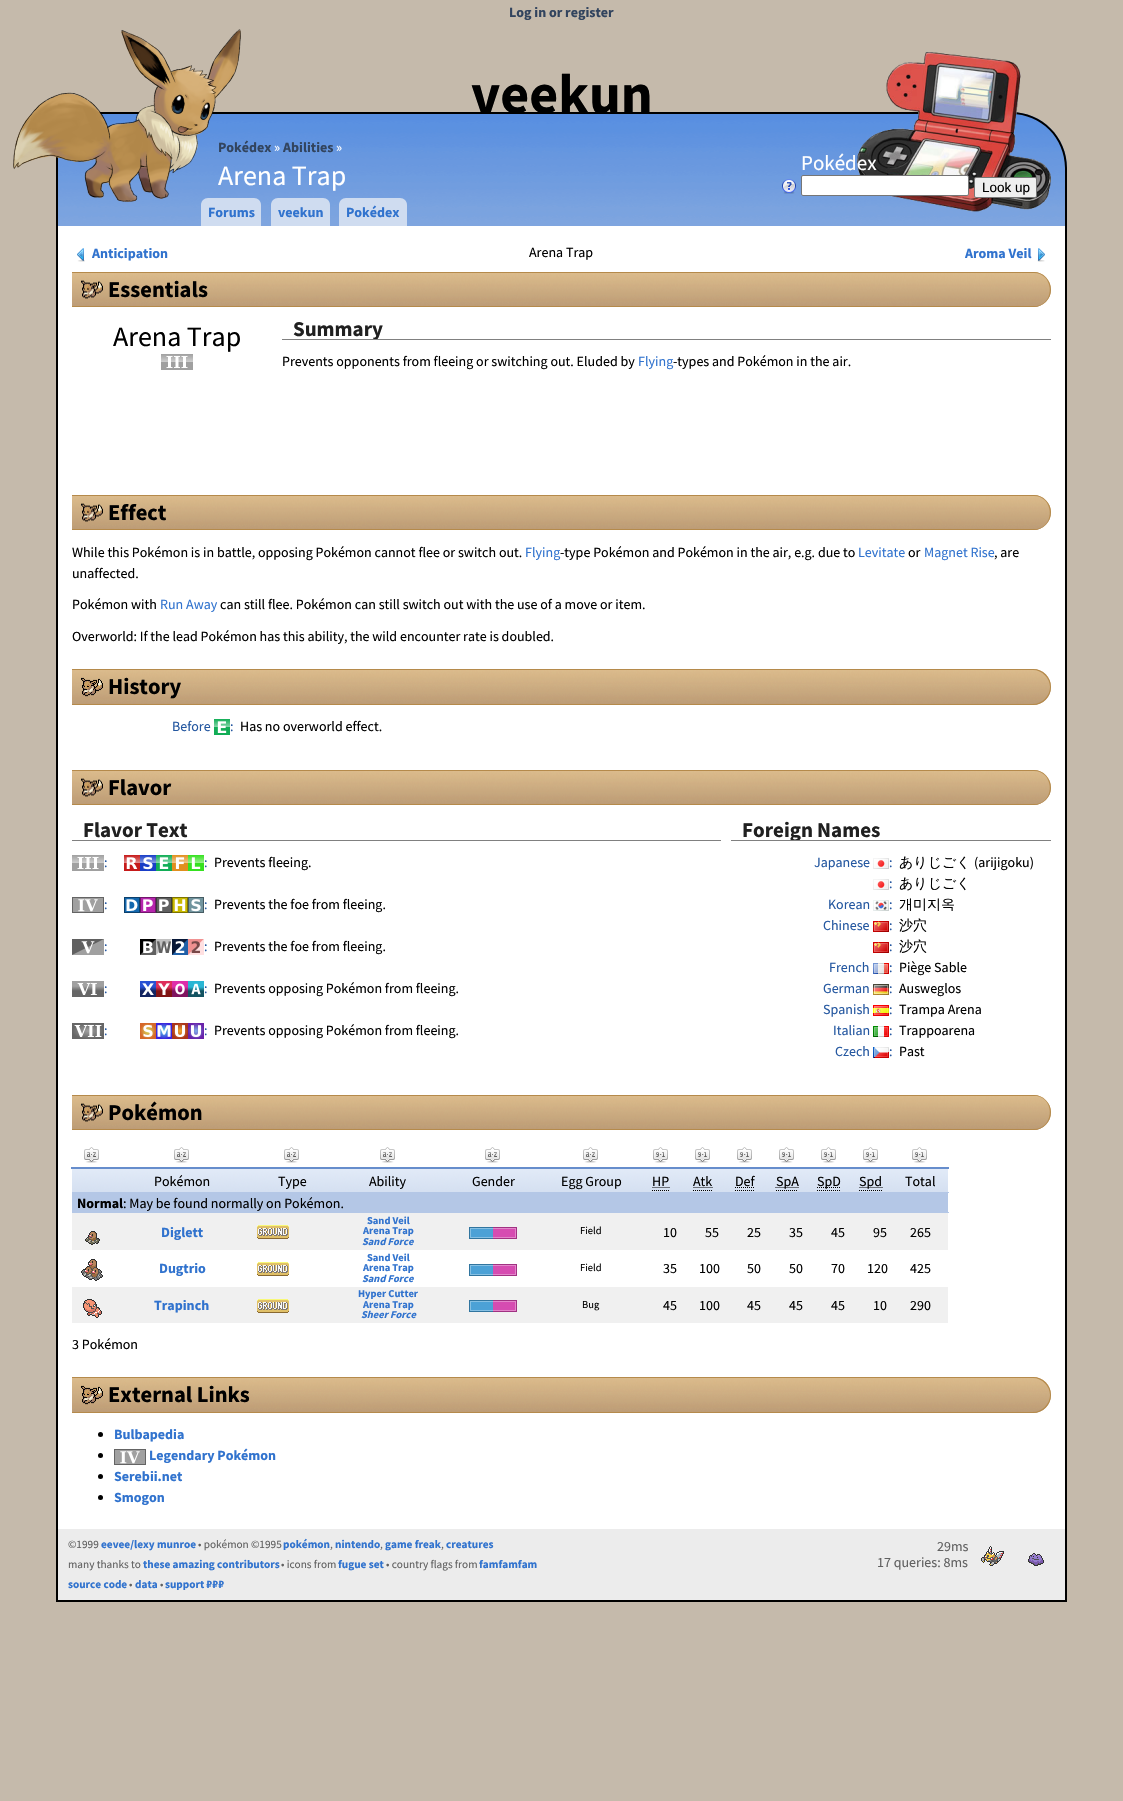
#include "include/core/SkBlurTypes.h"
#include "include/core/SkCanvas.h"
#include "include/core/SkData.h"
#include "include/core/SkFont.h"
#include "include/core/SkFontMgr.h"
#include "include/core/SkImage.h"
#include "include/core/SkMaskFilter.h"
#include "include/core/SkPaint.h"
#include "include/core/SkPathBuilder.h"
#include "include/core/SkTextBlob.h"
#include "include/effects/SkDashPathEffect.h"
#include "include/effects/SkGradientShader.h"
#include "include/utils/SkParsePath.h"

extern sk_sp<SkFontMgr> fontMgr;

void draw(SkCanvas* canvas) {
  SkPaint p;
  p.setAntiAlias(true);
  canvas->clear(SkColorSetRGB(197, 186, 171));
  canvas->drawImageRect(SkImages::DeferredFromEncodedData(SkData::MakeFromFileName("images/1.png")), SkRect::MakeLTRB(58, 112, 1067, 226), SkSamplingOptions());
  p.setColor(SK_ColorBLACK);
  canvas->drawPath(SkPathBuilder(SkPathFillType::kEvenOdd).moveTo(56, 112).lineTo(1011, 112).cubicTo(1042, 112, 1067, 137, 1067, 168).lineTo(1067, 226).lineTo(56, 226).close().moveTo(58, 114).lineTo(1011, 114).cubicTo(1041, 114, 1065, 138, 1065, 168).lineTo(1065, 226).lineTo(58, 226).close().detach(), p);
  canvas->drawImageRect(SkImages::DeferredFromEncodedData(SkData::MakeFromFileName("images/2.png")), SkRect::MakeLTRB(13, 29, 241, 202), SkSamplingOptions());
  canvas->drawImageRect(SkImages::DeferredFromEncodedData(SkData::MakeFromFileName("images/3.png")), SkRect::MakeLTRB(857, 52, 1051, 212), SkSamplingOptions());
  canvas->drawImageRect(SkImages::DeferredFromEncodedData(SkData::MakeFromFileName("images/4.png")), SkRect::MakeLTRB(782, 179, 796, 194), SkSamplingOptions());
  p.setColor(SK_ColorWHITE);
  canvas->drawRoundRect(SkRect::MakeLTRB(801.5f, 175.5f, 968.5f, 195.5f), 1.5f, 1.5f, p);
  p.setStyle(SkPaint::kStroke_Style);
  p.setStrokeWidth(1);
  p.setColor(SkColorSetRGB(118, 118, 118));
  canvas->drawRoundRect(SkRect::MakeLTRB(801.5f, 175.5f, 968.5f, 195.5f), 1.5f, 1.5f, p);
  p.setStyle(SkPaint::kFill_Style);
  p.setColor(SkColorSetRGB(239, 239, 239));
  canvas->drawRoundRect(SkRect::MakeLTRB(974.5f, 177.5f, 1036.5f, 197.5f), 1.5f, 1.5f, p);
  p.setStyle(SkPaint::kStroke_Style);
  p.setColor(SkColorSetRGB(118, 118, 118));
  canvas->drawRoundRect(SkRect::MakeLTRB(974.5f, 177.5f, 1036.5f, 197.5f), 1.5f, 1.5f, p);
  p.setStyle(SkPaint::kFill_Style);
  p.setColor(SkColorSetRGB(207, 220, 240));
  canvas->drawPath(SkPathBuilder().moveTo(208, 198).lineTo(254, 198).cubicTo(258, 198, 261, 201, 261, 205).lineTo(261, 226).lineTo(201, 226).lineTo(201, 205).cubicTo(201, 201, 204, 198, 208, 198).close().detach(), p);
  canvas->drawPath(SkPathBuilder().moveTo(278, 198).lineTo(323, 198).cubicTo(327, 198, 330, 201, 330, 205).lineTo(330, 226).lineTo(271, 226).lineTo(271, 205).cubicTo(271, 201, 274, 198, 278, 198).close().detach(), p);
  canvas->drawPath(SkPathBuilder().moveTo(346, 198).lineTo(400, 198).cubicTo(404, 198, 407, 201, 407, 205).lineTo(407, 226).lineTo(339, 226).lineTo(339, 205).cubicTo(339, 201, 342, 198, 346, 198).close().detach(), p);
  p.setColor(SK_ColorWHITE);
  canvas->drawRect(SkRect::MakeLTRB(58, 226, 1065, 1529), p);
  p.setColor(SK_ColorBLACK);
  canvas->drawRect(SkRect::MakeLTRB(1065, 226, 1067, 1602), p);
  canvas->drawRect(SkRect::MakeLTRB(56, 226, 58, 1529), p);
  canvas->drawImageRect(SkImages::DeferredFromEncodedData(SkData::MakeFromFileName("images/5.png")), SkRect::MakeLTRB(77, 248, 85, 262), SkSamplingOptions());
  canvas->drawImageRect(SkImages::DeferredFromEncodedData(SkData::MakeFromFileName("images/6.png")), SkRect::MakeLTRB(1037, 248, 1045, 262), SkSamplingOptions());
  canvas->drawImageRect(SkImages::DeferredFromEncodedData(SkData::MakeFromFileName("images/7.png")), SkRect::MakeLTRB(72, 272, 1051, 307), SkSamplingOptions());
  p.setColor(SkColorSetRGB(181, 138, 75));
  canvas->drawPath(SkPathBuilder(SkPathFillType::kEvenOdd).moveTo(72, 272).lineTo(1034, 272).cubicTo(1043, 272, 1051, 280, 1051, 290).cubicTo(1051, 299, 1043, 307, 1034, 307).lineTo(72, 307).close().moveTo(72, 273).lineTo(1034, 273).cubicTo(1053, 273, 1056, 302, 1037, 306).lineTo(72, 306).close().detach(), p);
  canvas->drawImageRect(SkImages::DeferredFromEncodedData(SkData::MakeFromFileName("images/8.png")), SkRect::MakeLTRB(161, 354, 193, 370), SkSamplingOptions());
  p.setColor(SkColorSetRGB(128, 128, 128));
  canvas->drawRect(SkRect::MakeLTRB(282, 339, 1051, 340), p);
  canvas->drawImageRect(SkImages::DeferredFromEncodedData(SkData::MakeFromFileName("images/9.png")), SkRect::MakeLTRB(72, 495, 1051, 530), SkSamplingOptions());
  p.setColor(SkColorSetRGB(181, 138, 75));
  canvas->drawPath(SkPathBuilder(SkPathFillType::kEvenOdd).moveTo(72, 495).lineTo(1034, 495).cubicTo(1043, 495, 1051, 503, 1051, 512).cubicTo(1051, 522, 1043, 530, 1034, 530).lineTo(72, 530).close().moveTo(72, 496).lineTo(1034, 496).cubicTo(1053, 496, 1056, 525, 1037, 529).lineTo(72, 529).close().detach(), p);
  canvas->drawImageRect(SkImages::DeferredFromEncodedData(SkData::MakeFromFileName("images/10.png")), SkRect::MakeLTRB(72, 669, 1051, 705), SkSamplingOptions());
  canvas->drawPath(SkPathBuilder(SkPathFillType::kEvenOdd).moveTo(72, 669).lineTo(1033, 669).cubicTo(1043, 669, 1051, 677, 1051, 687).cubicTo(1051, 697, 1043, 705, 1033, 705).lineTo(72, 705).close().moveTo(72, 670).lineTo(1033, 670).cubicTo(1042, 670, 1050, 678, 1050, 687).cubicTo(1050, 696, 1042, 704, 1033, 704).lineTo(72, 704).close().detach(), p);
  canvas->drawImageRect(SkImages::DeferredFromEncodedData(SkData::MakeFromFileName("images/11.png")), SkRect::MakeLTRB(214, 719, 230, 735), SkSamplingOptions());
  canvas->drawImageRect(SkImages::DeferredFromEncodedData(SkData::MakeFromFileName("images/7.png")), SkRect::MakeLTRB(72, 770, 1051, 805), SkSamplingOptions());
  canvas->drawPath(SkPathBuilder(SkPathFillType::kEvenOdd).moveTo(72, 770).lineTo(1034, 770).cubicTo(1043, 770, 1051, 778, 1051, 788).cubicTo(1051, 797, 1043, 805, 1034, 805).lineTo(72, 805).close().moveTo(72, 771).lineTo(1034, 771).cubicTo(1053, 771, 1056, 800, 1037, 804).lineTo(72, 804).close().detach(), p);
  p.setColor(SkColorSetRGB(128, 128, 128));
  canvas->drawRect(SkRect::MakeLTRB(72, 840, 721, 841), p);
  canvas->drawImageRect(SkImages::DeferredFromEncodedData(SkData::MakeFromFileName("images/8.png")), SkRect::MakeLTRB(72, 855, 104, 871), SkSamplingOptions());
  canvas->drawImageRect(SkImages::DeferredFromEncodedData(SkData::MakeFromFileName("images/12.png")), SkRect::MakeLTRB(124, 855, 140, 871), SkSamplingOptions());
  canvas->drawImageRect(SkImages::DeferredFromEncodedData(SkData::MakeFromFileName("images/13.png")), SkRect::MakeLTRB(140, 855, 156, 871), SkSamplingOptions());
  canvas->drawImageRect(SkImages::DeferredFromEncodedData(SkData::MakeFromFileName("images/11.png")), SkRect::MakeLTRB(156, 855, 172, 871), SkSamplingOptions());
  canvas->drawImageRect(SkImages::DeferredFromEncodedData(SkData::MakeFromFileName("images/14.png")), SkRect::MakeLTRB(172, 855, 188, 871), SkSamplingOptions());
  canvas->drawImageRect(SkImages::DeferredFromEncodedData(SkData::MakeFromFileName("images/15.png")), SkRect::MakeLTRB(188, 855, 204, 871), SkSamplingOptions());
  canvas->drawImageRect(SkImages::DeferredFromEncodedData(SkData::MakeFromFileName("images/16.png")), SkRect::MakeLTRB(72, 897, 104, 913), SkSamplingOptions());
  canvas->drawImageRect(SkImages::DeferredFromEncodedData(SkData::MakeFromFileName("images/17.png")), SkRect::MakeLTRB(124, 897, 140, 913), SkSamplingOptions());
  canvas->drawImageRect(SkImages::DeferredFromEncodedData(SkData::MakeFromFileName("images/18.png")), SkRect::MakeLTRB(140, 897, 156, 913), SkSamplingOptions());
  canvas->drawImageRect(SkImages::DeferredFromEncodedData(SkData::MakeFromFileName("images/19.png")), SkRect::MakeLTRB(156, 897, 172, 913), SkSamplingOptions());
  canvas->drawImageRect(SkImages::DeferredFromEncodedData(SkData::MakeFromFileName("images/20.png")), SkRect::MakeLTRB(172, 897, 188, 913), SkSamplingOptions());
  canvas->drawImageRect(SkImages::DeferredFromEncodedData(SkData::MakeFromFileName("images/21.png")), SkRect::MakeLTRB(188, 897, 204, 913), SkSamplingOptions());
  canvas->drawImageRect(SkImages::DeferredFromEncodedData(SkData::MakeFromFileName("images/22.png")), SkRect::MakeLTRB(72, 939, 104, 955), SkSamplingOptions());
  canvas->drawImageRect(SkImages::DeferredFromEncodedData(SkData::MakeFromFileName("images/23.png")), SkRect::MakeLTRB(140, 939, 156, 955), SkSamplingOptions());
  canvas->drawImageRect(SkImages::DeferredFromEncodedData(SkData::MakeFromFileName("images/24.png")), SkRect::MakeLTRB(156, 939, 172, 955), SkSamplingOptions());
  canvas->drawImageRect(SkImages::DeferredFromEncodedData(SkData::MakeFromFileName("images/25.png")), SkRect::MakeLTRB(172, 939, 188, 955), SkSamplingOptions());
  canvas->drawImageRect(SkImages::DeferredFromEncodedData(SkData::MakeFromFileName("images/26.png")), SkRect::MakeLTRB(188, 939, 204, 955), SkSamplingOptions());
  canvas->drawImageRect(SkImages::DeferredFromEncodedData(SkData::MakeFromFileName("images/27.png")), SkRect::MakeLTRB(72, 981, 104, 997), SkSamplingOptions());
  canvas->drawImageRect(SkImages::DeferredFromEncodedData(SkData::MakeFromFileName("images/28.png")), SkRect::MakeLTRB(140, 981, 156, 997), SkSamplingOptions());
  canvas->drawImageRect(SkImages::DeferredFromEncodedData(SkData::MakeFromFileName("images/29.png")), SkRect::MakeLTRB(156, 981, 172, 997), SkSamplingOptions());
  canvas->drawImageRect(SkImages::DeferredFromEncodedData(SkData::MakeFromFileName("images/30.png")), SkRect::MakeLTRB(172, 981, 188, 997), SkSamplingOptions());
  canvas->drawImageRect(SkImages::DeferredFromEncodedData(SkData::MakeFromFileName("images/31.png")), SkRect::MakeLTRB(188, 981, 204, 997), SkSamplingOptions());
  canvas->drawImageRect(SkImages::DeferredFromEncodedData(SkData::MakeFromFileName("images/32.png")), SkRect::MakeLTRB(72, 1023, 104, 1039), SkSamplingOptions());
  canvas->drawImageRect(SkImages::DeferredFromEncodedData(SkData::MakeFromFileName("images/33.png")), SkRect::MakeLTRB(140, 1023, 156, 1039), SkSamplingOptions());
  canvas->drawImageRect(SkImages::DeferredFromEncodedData(SkData::MakeFromFileName("images/34.png")), SkRect::MakeLTRB(156, 1023, 172, 1039), SkSamplingOptions());
  canvas->drawImageRect(SkImages::DeferredFromEncodedData(SkData::MakeFromFileName("images/35.png")), SkRect::MakeLTRB(172, 1023, 188, 1039), SkSamplingOptions());
  canvas->drawImageRect(SkImages::DeferredFromEncodedData(SkData::MakeFromFileName("images/36.png")), SkRect::MakeLTRB(188, 1023, 204, 1039), SkSamplingOptions());
  canvas->drawRect(SkRect::MakeLTRB(731, 840, 1051, 841), p);
  canvas->drawImageRect(SkImages::DeferredFromEncodedData(SkData::MakeFromFileName("images/37.png")), SkRect::MakeLTRB(873, 858, 889, 869), SkSamplingOptions());
  canvas->drawImageRect(SkImages::DeferredFromEncodedData(SkData::MakeFromFileName("images/37.png")), SkRect::MakeLTRB(873, 879, 889, 890), SkSamplingOptions());
  canvas->drawImageRect(SkImages::DeferredFromEncodedData(SkData::MakeFromFileName("images/38.png")), SkRect::MakeLTRB(873, 900, 889, 911), SkSamplingOptions());
  canvas->drawImageRect(SkImages::DeferredFromEncodedData(SkData::MakeFromFileName("images/39.png")), SkRect::MakeLTRB(873, 921, 889, 932), SkSamplingOptions());
  canvas->drawImageRect(SkImages::DeferredFromEncodedData(SkData::MakeFromFileName("images/39.png")), SkRect::MakeLTRB(873, 942, 889, 953), SkSamplingOptions());
  canvas->drawImageRect(SkImages::DeferredFromEncodedData(SkData::MakeFromFileName("images/40.png")), SkRect::MakeLTRB(873, 963, 889, 974), SkSamplingOptions());
  canvas->drawImageRect(SkImages::DeferredFromEncodedData(SkData::MakeFromFileName("images/41.png")), SkRect::MakeLTRB(873, 984, 889, 995), SkSamplingOptions());
  canvas->drawImageRect(SkImages::DeferredFromEncodedData(SkData::MakeFromFileName("images/42.png")), SkRect::MakeLTRB(873, 1005, 889, 1016), SkSamplingOptions());
  canvas->drawImageRect(SkImages::DeferredFromEncodedData(SkData::MakeFromFileName("images/43.png")), SkRect::MakeLTRB(873, 1026, 889, 1037), SkSamplingOptions());
  canvas->drawImageRect(SkImages::DeferredFromEncodedData(SkData::MakeFromFileName("images/44.png")), SkRect::MakeLTRB(873, 1047, 889, 1058), SkSamplingOptions());
  canvas->drawImageRect(SkImages::DeferredFromEncodedData(SkData::MakeFromFileName("images/45.png")), SkRect::MakeLTRB(72, 1095, 1051, 1130), SkSamplingOptions());
  p.setColor(SkColorSetRGB(181, 138, 75));
  canvas->drawPath(SkPathBuilder(SkPathFillType::kEvenOdd).moveTo(72, 1095).lineTo(1034, 1095).cubicTo(1043, 1095, 1051, 1103, 1051, 1112).cubicTo(1051, 1122, 1043, 1130, 1034, 1130).lineTo(72, 1130).close().moveTo(72, 1096).lineTo(1037, 1096).cubicTo(1056, 1100, 1053, 1129, 1034, 1129).lineTo(72, 1129).close().detach(), p);
  canvas->drawImageRect(SkImages::DeferredFromEncodedData(SkData::MakeFromFileName("images/46.png")), SkRect::MakeLTRB(84, 1147, 99, 1163), SkSamplingOptions());
  canvas->drawImageRect(SkImages::DeferredFromEncodedData(SkData::MakeFromFileName("images/46.png")), SkRect::MakeLTRB(174, 1147, 189, 1163), SkSamplingOptions());
  canvas->drawImageRect(SkImages::DeferredFromEncodedData(SkData::MakeFromFileName("images/46.png")), SkRect::MakeLTRB(284, 1147, 299, 1163), SkSamplingOptions());
  canvas->drawImageRect(SkImages::DeferredFromEncodedData(SkData::MakeFromFileName("images/46.png")), SkRect::MakeLTRB(380, 1147, 395, 1163), SkSamplingOptions());
  canvas->drawImageRect(SkImages::DeferredFromEncodedData(SkData::MakeFromFileName("images/46.png")), SkRect::MakeLTRB(485, 1147, 500, 1163), SkSamplingOptions());
  canvas->drawImageRect(SkImages::DeferredFromEncodedData(SkData::MakeFromFileName("images/46.png")), SkRect::MakeLTRB(583, 1147, 598, 1163), SkSamplingOptions());
  canvas->drawImageRect(SkImages::DeferredFromEncodedData(SkData::MakeFromFileName("images/47.png")), SkRect::MakeLTRB(653, 1147, 668, 1163), SkSamplingOptions());
  canvas->drawImageRect(SkImages::DeferredFromEncodedData(SkData::MakeFromFileName("images/47.png")), SkRect::MakeLTRB(695, 1147, 710, 1163), SkSamplingOptions());
  canvas->drawImageRect(SkImages::DeferredFromEncodedData(SkData::MakeFromFileName("images/47.png")), SkRect::MakeLTRB(737, 1147, 752, 1163), SkSamplingOptions());
  canvas->drawImageRect(SkImages::DeferredFromEncodedData(SkData::MakeFromFileName("images/47.png")), SkRect::MakeLTRB(779, 1147, 794, 1163), SkSamplingOptions());
  canvas->drawImageRect(SkImages::DeferredFromEncodedData(SkData::MakeFromFileName("images/47.png")), SkRect::MakeLTRB(821, 1147, 836, 1163), SkSamplingOptions());
  canvas->drawImageRect(SkImages::DeferredFromEncodedData(SkData::MakeFromFileName("images/47.png")), SkRect::MakeLTRB(863, 1147, 878, 1163), SkSamplingOptions());
  canvas->drawImageRect(SkImages::DeferredFromEncodedData(SkData::MakeFromFileName("images/47.png")), SkRect::MakeLTRB(912, 1147, 927, 1163), SkSamplingOptions());
  p.setColor(SkColorSetRGB(102, 141, 204));
  canvas->drawRect(SkRect::MakeLTRB(71, 1167, 949, 1169), p);
  canvas->drawImageRect(SkImages::DeferredFromEncodedData(SkData::MakeFromFileName("images/48.png")), SkRect::MakeLTRB(72, 1169, 112, 1192), SkSamplingOptions());
  canvas->drawImageRect(SkImages::DeferredFromEncodedData(SkData::MakeFromFileName("images/49.png")), SkRect::MakeLTRB(112, 1169, 252, 1192), SkSamplingOptions());
  canvas->drawImageRect(SkImages::DeferredFromEncodedData(SkData::MakeFromFileName("images/50.png")), SkRect::MakeLTRB(252, 1169, 332, 1192), SkSamplingOptions());
  canvas->drawImageRect(SkImages::DeferredFromEncodedData(SkData::MakeFromFileName("images/51.png")), SkRect::MakeLTRB(332, 1169, 444, 1192), SkSamplingOptions());
  canvas->drawImageRect(SkImages::DeferredFromEncodedData(SkData::MakeFromFileName("images/52.png")), SkRect::MakeLTRB(444, 1169, 542, 1192), SkSamplingOptions());
  canvas->drawImageRect(SkImages::DeferredFromEncodedData(SkData::MakeFromFileName("images/52.png")), SkRect::MakeLTRB(542, 1169, 640, 1192), SkSamplingOptions());
  canvas->drawImageRect(SkImages::DeferredFromEncodedData(SkData::MakeFromFileName("images/53.png")), SkRect::MakeLTRB(640, 1169, 682, 1192), SkSamplingOptions());
  p.setStyle(SkPaint::kStroke_Style);
  p.setColor(SK_ColorBLACK);
  p.setPathEffect(SkDashPathEffect::Make({{1, 1}}, 0));
  canvas->drawPath(SkPathBuilder().moveTo(652, 1190.5f).lineTo(670, 1190.5f).moveTo(652.5f, 1187.5f).lineTo(669.5f, 1187.5f).detach(), p);
  p.setPathEffect(nullptr);
  canvas->drawImageRect(SkImages::DeferredFromEncodedData(SkData::MakeFromFileName("images/53.png")), SkRect::MakeLTRB(682, 1169, 724, 1192), SkSamplingOptions());
  p.setPathEffect(SkDashPathEffect::Make({{1, 1}}, 0));
  canvas->drawPath(SkPathBuilder().moveTo(693, 1190.5f).lineTo(713, 1190.5f).moveTo(693.5f, 1187.5f).lineTo(712.5f, 1187.5f).detach(), p);
  p.setPathEffect(nullptr);
  canvas->drawImageRect(SkImages::DeferredFromEncodedData(SkData::MakeFromFileName("images/53.png")), SkRect::MakeLTRB(724, 1169, 766, 1192), SkSamplingOptions());
  p.setPathEffect(SkDashPathEffect::Make({{1, 1}}, 0));
  canvas->drawPath(SkPathBuilder().moveTo(735, 1190.5f).lineTo(755, 1190.5f).moveTo(735, 1187.5f).lineTo(755, 1187.5f).detach(), p);
  p.setPathEffect(nullptr);
  canvas->drawImageRect(SkImages::DeferredFromEncodedData(SkData::MakeFromFileName("images/53.png")), SkRect::MakeLTRB(766, 1169, 808, 1192), SkSamplingOptions());
  p.setPathEffect(SkDashPathEffect::Make({{1, 1}}, 0));
  canvas->drawPath(SkPathBuilder().moveTo(776, 1190.5f).lineTo(798, 1190.5f).moveTo(775.5f, 1187.5f).lineTo(798.5f, 1187.5f).detach(), p);
  p.setPathEffect(nullptr);
  canvas->drawImageRect(SkImages::DeferredFromEncodedData(SkData::MakeFromFileName("images/53.png")), SkRect::MakeLTRB(808, 1169, 850, 1192), SkSamplingOptions());
  p.setPathEffect(SkDashPathEffect::Make({{1, 1}}, 0));
  canvas->drawPath(SkPathBuilder().moveTo(817, 1190.5f).lineTo(841, 1190.5f).moveTo(817, 1187.5f).lineTo(841, 1187.5f).detach(), p);
  p.setPathEffect(nullptr);
  canvas->drawImageRect(SkImages::DeferredFromEncodedData(SkData::MakeFromFileName("images/53.png")), SkRect::MakeLTRB(850, 1169, 892, 1192), SkSamplingOptions());
  p.setPathEffect(SkDashPathEffect::Make({{1, 1}}, 0));
  canvas->drawPath(SkPathBuilder().moveTo(859, 1190.5f).lineTo(883, 1190.5f).moveTo(859.5f, 1187.5f).lineTo(882.5f, 1187.5f).detach(), p);
  p.setPathEffect(nullptr);
  canvas->drawImageRect(SkImages::DeferredFromEncodedData(SkData::MakeFromFileName("images/54.png")), SkRect::MakeLTRB(892, 1169, 948, 1192), SkSamplingOptions());
  p.setStyle(SkPaint::kFill_Style);
  p.setColor(SkColorSetRGB(180, 199, 230));
  canvas->drawRect(SkRect::MakeLTRB(72, 1192, 949, 1193), p);
  canvas->drawRect(SkRect::MakeLTRB(72, 1193, 948, 1212), p);
  canvas->drawRect(SkRect::MakeLTRB(72, 1212, 949, 1213), p);
  p.setColor(SkColorSetRGB(240, 240, 240));
  canvas->drawRect(SkRect::MakeLTRB(72, 1213, 948, 1250), p);
  canvas->drawImageRect(SkImages::DeferredFromEncodedData(SkData::MakeFromFileName("images/55.png")), SkRect::MakeLTRB(85, 1231, 100, 1245), SkSamplingOptions());
  canvas->drawImageRect(SkImages::DeferredFromEncodedData(SkData::MakeFromFileName("images/56.png")), SkRect::MakeLTRB(257, 1225, 289, 1239), SkSamplingOptions());
  canvas->drawImageRect(SkImages::DeferredFromEncodedData(SkData::MakeFromFileName("images/57.png")), SkRect::MakeLTRB(469, 1227, 517, 1239), SkSamplingOptions());
  canvas->drawImageRect(SkImages::DeferredFromEncodedData(SkData::MakeFromFileName("images/58.png")), SkRect::MakeLTRB(81, 1259, 103, 1281), SkSamplingOptions());
  canvas->drawImageRect(SkImages::DeferredFromEncodedData(SkData::MakeFromFileName("images/59.png")), SkRect::MakeLTRB(257, 1262, 289, 1276), SkSamplingOptions());
  canvas->drawImageRect(SkImages::DeferredFromEncodedData(SkData::MakeFromFileName("images/57.png")), SkRect::MakeLTRB(469, 1264, 517, 1276), SkSamplingOptions());
  canvas->drawRect(SkRect::MakeLTRB(72, 1287, 948, 1323), p);
  canvas->drawImageRect(SkImages::DeferredFromEncodedData(SkData::MakeFromFileName("images/60.png")), SkRect::MakeLTRB(83, 1299, 102, 1318), SkSamplingOptions());
  canvas->drawImageRect(SkImages::DeferredFromEncodedData(SkData::MakeFromFileName("images/56.png")), SkRect::MakeLTRB(257, 1299, 289, 1313), SkSamplingOptions());
  canvas->drawImageRect(SkImages::DeferredFromEncodedData(SkData::MakeFromFileName("images/57.png")), SkRect::MakeLTRB(469, 1300, 517, 1312), SkSamplingOptions());
  canvas->drawImageRect(SkImages::DeferredFromEncodedData(SkData::MakeFromFileName("images/10.png")), SkRect::MakeLTRB(72, 1377, 1051, 1413), SkSamplingOptions());
  p.setColor(SkColorSetRGB(181, 138, 75));
  canvas->drawPath(SkPathBuilder(SkPathFillType::kEvenOdd).moveTo(72, 1377).lineTo(1033, 1377).cubicTo(1043, 1377, 1051, 1385, 1051, 1395).cubicTo(1051, 1405, 1043, 1413, 1033, 1413).lineTo(72, 1413).close().moveTo(72, 1378).lineTo(1033, 1378).cubicTo(1042, 1378, 1050, 1386, 1050, 1395).cubicTo(1050, 1404, 1042, 1412, 1033, 1412).lineTo(72, 1412).close().detach(), p);
  p.setColor(SK_ColorBLACK);
  canvas->drawCircle(100.5f, 1434.5f, 2.5f, p);
  canvas->drawCircle(100.5f, 1455.5f, 2.5f, p);
  canvas->drawImageRect(SkImages::DeferredFromEncodedData(SkData::MakeFromFileName("images/16.png")), SkRect::MakeLTRB(114, 1449, 146, 1465), SkSamplingOptions());
  canvas->drawCircle(100.5f, 1476.5f, 2.5f, p);
  canvas->drawCircle(100.5f, 1497.5f, 2.5f, p);
  p.setColor(SkColorSetRGB(236, 236, 236));
  canvas->drawRect(SkRect::MakeLTRB(58, 1529, 1065, 1600), p);
  p.setColor(SK_ColorBLACK);
  canvas->drawRect(SkRect::MakeLTRB(56, 1600, 1067, 1602), p);
  canvas->drawRect(SkRect::MakeLTRB(56, 1529, 58, 1602), p);
  canvas->drawImageRect(SkImages::DeferredFromEncodedData(SkData::MakeFromFileName("images/61.png")), SkRect::MakeLTRB(981, 1546, 1004, 1566), SkSamplingOptions());
  canvas->drawImageRect(SkImages::DeferredFromEncodedData(SkData::MakeFromFileName("images/62.png")), SkRect::MakeLTRB(1028, 1553, 1044, 1566), SkSamplingOptions());
  SkFont font1(fontMgr->matchFamilyStyle("Source Sans Pro", SkFontStyle::Bold()), 14);
  font1.setSubpixel(true);
  p.setColor(SkColorSetRGB(50, 68, 94));
  canvas->drawString("Log in or register", 509, 17, font1, p);
  SkFont font2(fontMgr->matchFamilyStyle("Source Sans Pro", SkFontStyle::Bold()), 56);
  font2.setSubpixel(true);
  p.setColor(SK_ColorBLACK);
  canvas->drawString("veekun", 471, 113, font2, p);
  p.setColor(SkColorSetRGB(50, 68, 94));
  canvas->drawString("Pokédex", 218, 152, font1, p);
  SkFont font3(fontMgr->matchFamilyStyle("Source Sans Pro", SkFontStyle::Normal()), 14);
  font3.setSubpixel(true);
  p.setColor(SK_ColorWHITE);
  canvas->drawString("»", 274, 152, font3, p);
  p.setColor(SkColorSetRGB(50, 68, 94));
  canvas->drawString("Abilities", 283, 152, font1, p);
  p.setColor(SK_ColorWHITE);
  canvas->drawString("»", 336, 152, font3, p);
  SkFont font4(fontMgr->matchFamilyStyle("Source Sans Pro", SkFontStyle::Normal()), 28);
  font4.setSubpixel(true);
  canvas->drawString("Arena Trap", 218, 185, font4, p);
  SkFont font5(fontMgr->matchFamilyStyle("Source Sans Pro", SkFontStyle::Normal()), 21);
  font5.setSubpixel(true);
  canvas->drawString("Pokédex", 801, 170, font5, p);
  SkFont font6(fontMgr->matchFamilyStyle("Liberation Sans", SkFontStyle::Normal()), 13.5f);
  font6.setSubpixel(true);
  p.setColor(SK_ColorBLACK);
  canvas->drawString("Look up", 982, 192, font6, p);
  p.setColor(SkColorSetRGB(49, 115, 206));
  canvas->drawString("Forums", 208, 217, font1, p);
  canvas->drawString("veekun", 278, 217, font1, p);
  canvas->drawString("Pokédex", 346, 217, font1, p);
  canvas->drawString("Anticipation", 92, 258, font1, p);
  p.setColor(SK_ColorBLACK);
  canvas->drawString("Arena Trap", 529, 257, font3, p);
  p.setColor(SkColorSetRGB(49, 115, 206));
  canvas->drawString("Aroma Veil", 965, 258, font1, p);
  SkFont font7(fontMgr->matchFamilyStyle("Source Sans Pro", SkFontStyle::Bold()), 22.5f);
  font7.setSubpixel(true);
  p.setColor(SK_ColorBLACK);
  canvas->drawString("Essentials", 108, 297, font7, p);
  canvas->drawString("Arena Trap", 113, 346, font4, p);
  canvas->save();
  canvas->clipRect(SkRect::MakeLTRB(282, 318, 1051, 339));
  SkFont font8(fontMgr->matchFamilyStyle("Source Sans Pro", SkFontStyle::Bold()), 21);
  font8.setSubpixel(true);
  p.setColor(SkColorSetRGB(32, 32, 32));
  canvas->drawString("Summary", 293, 336, font8, p);
  canvas->restore();
  p.setColor(SK_ColorBLACK);
  canvas->drawString("Prevents opponents from fleeing or switching out. Eluded by", 282, 366, font3, p);
  p.setColor(SkColorSetRGB(49, 115, 206));
  canvas->drawString("Flying", 638, 366, font3, p);
  p.setColor(SK_ColorBLACK);
  canvas->drawString("-types and Pokémon in the air.", 673, 366, font3, p);
  canvas->drawString("Effect", 108, 520, font7, p);
  canvas->drawString("While this Pokémon is in battle, opposing Pokémon cannot flee or switch out.", 72, 557, font3, p);
  p.setColor(SkColorSetRGB(49, 115, 206));
  canvas->drawString("Flying", 525, 557, font3, p);
  p.setColor(SK_ColorBLACK);
  canvas->drawString("-type Pokémon and Pokémon in the air, e.g. due to", 560, 557, font3, p);
  p.setColor(SkColorSetRGB(49, 115, 206));
  canvas->drawString("Levitate", 858, 557, font3, p);
  p.setColor(SK_ColorBLACK);
  canvas->drawString("or", 908, 557, font3, p);
  p.setColor(SkColorSetRGB(49, 115, 206));
  canvas->drawString("Magnet Rise", 924, 557, font3, p);
  p.setColor(SK_ColorBLACK);
  canvas->drawString(", are", 994, 557, font3, p);
  canvas->drawString("unaffected.", 72, 578, font3, p);
  canvas->drawString("Pokémon with", 72, 609, font3, p);
  p.setColor(SkColorSetRGB(49, 115, 206));
  canvas->drawString("Run Away", 160, 609, font3, p);
  p.setColor(SK_ColorBLACK);
  canvas->drawString("can still flee. Pokémon can still switch out with the use of a move or item.", 220, 609, font3, p);
  canvas->drawString("Overworld: If the lead Pokémon has this ability, the wild encounter rate is doubled.", 72, 641, font3, p);
  canvas->drawString("History", 108, 694, font7, p);
  p.setColor(SkColorSetRGB(36, 87, 160));
  canvas->drawString("Before", 172, 731, font3, p);
  canvas->drawString(":", 230, 731, font3, p);
  p.setColor(SK_ColorBLACK);
  canvas->drawString("Has no overworld effect.", 240, 731, font3, p);
  canvas->drawString("Flavor", 108, 795, font7, p);
  p.setColor(SkColorSetRGB(32, 32, 32));
  canvas->drawString("Flavor Text", 83, 837, font8, p);
  p.setColor(SkColorSetRGB(36, 87, 160));
  canvas->drawString(":", 104, 867, font3, p);
  canvas->drawString(":", 204, 867, font3, p);
  p.setColor(SK_ColorBLACK);
  canvas->drawString("Prevents fleeing.", 214, 867, font3, p);
  p.setColor(SkColorSetRGB(36, 87, 160));
  canvas->drawString(":", 104, 909, font3, p);
  canvas->drawString(":", 204, 909, font3, p);
  p.setColor(SK_ColorBLACK);
  canvas->drawString("Prevents the foe from fleeing.", 214, 909, font3, p);
  p.setColor(SkColorSetRGB(36, 87, 160));
  canvas->drawString(":", 104, 951, font3, p);
  canvas->drawString(":", 204, 951, font3, p);
  p.setColor(SK_ColorBLACK);
  canvas->drawString("Prevents the foe from fleeing.", 214, 951, font3, p);
  p.setColor(SkColorSetRGB(36, 87, 160));
  canvas->drawString(":", 104, 993, font3, p);
  canvas->drawString(":", 204, 993, font3, p);
  p.setColor(SK_ColorBLACK);
  canvas->drawString("Prevents opposing Pokémon from fleeing.", 214, 993, font3, p);
  p.setColor(SkColorSetRGB(36, 87, 160));
  canvas->drawString(":", 104, 1035, font3, p);
  canvas->drawString(":", 204, 1035, font3, p);
  p.setColor(SK_ColorBLACK);
  canvas->drawString("Prevents opposing Pokémon from fleeing.", 214, 1035, font3, p);
  canvas->save();
  canvas->clipRect(SkRect::MakeLTRB(731, 819, 1051, 840));
  p.setColor(SkColorSetRGB(32, 32, 32));
  canvas->drawString("Foreign Names", 742, 837, font8, p);
  canvas->restore();
  p.setColor(SkColorSetRGB(36, 87, 160));
  canvas->drawString("Japanese", 814, 867, font3, p);
  canvas->drawString(":", 889, 867, font3, p);
  SkFont font9(fontMgr->matchFamilyStyle("WenQuanYi Zen Hei", SkFontStyle(500, SkFontStyle::kNormal_Width, SkFontStyle::kUpright_Slant)), 14);
  font9.setSubpixel(true);
  p.setColor(SK_ColorBLACK);
  canvas->drawString("ありじごく", 899, 867, font9, p);
  canvas->drawString("(arijigoku)", 974, 867, font3, p);
  p.setColor(SkColorSetRGB(36, 87, 160));
  canvas->drawString(":", 889, 888, font3, p);
  p.setColor(SK_ColorBLACK);
  canvas->drawString("ありじごく", 899, 888, font9, p);
  p.setColor(SkColorSetRGB(36, 87, 160));
  canvas->drawString("Korean", 828, 909, font3, p);
  canvas->drawString(":", 889, 909, font3, p);
  p.setColor(SK_ColorBLACK);
  canvas->drawString("개미지옥", 899, 909, font9, p);
  p.setColor(SkColorSetRGB(36, 87, 160));
  canvas->drawString("Chinese", 823, 930, font3, p);
  canvas->drawString(":", 889, 930, font3, p);
  p.setColor(SK_ColorBLACK);
  canvas->drawString("沙穴", 899, 930, font9, p);
  p.setColor(SkColorSetRGB(36, 87, 160));
  canvas->drawString(":", 889, 951, font3, p);
  p.setColor(SK_ColorBLACK);
  canvas->drawString("沙穴", 899, 951, font9, p);
  p.setColor(SkColorSetRGB(36, 87, 160));
  canvas->drawString("French", 829, 972, font3, p);
  canvas->drawString(":", 889, 972, font3, p);
  p.setColor(SK_ColorBLACK);
  canvas->drawString("Piège Sable", 899, 972, font3, p);
  p.setColor(SkColorSetRGB(36, 87, 160));
  canvas->drawString("German", 823, 993, font3, p);
  canvas->drawString(":", 889, 993, font3, p);
  p.setColor(SK_ColorBLACK);
  canvas->drawString("Ausweglos", 899, 993, font3, p);
  p.setColor(SkColorSetRGB(36, 87, 160));
  canvas->drawString("Spanish", 823, 1014, font3, p);
  canvas->drawString(":", 889, 1014, font3, p);
  p.setColor(SK_ColorBLACK);
  canvas->drawString("Trampa Arena", 899, 1014, font3, p);
  p.setColor(SkColorSetRGB(36, 87, 160));
  canvas->drawString("Italian", 833, 1035, font3, p);
  canvas->drawString(":", 889, 1035, font3, p);
  p.setColor(SK_ColorBLACK);
  canvas->drawString("Trappoarena", 899, 1035, font3, p);
  p.setColor(SkColorSetRGB(36, 87, 160));
  canvas->drawString("Czech", 835, 1056, font3, p);
  canvas->drawString(":", 889, 1056, font3, p);
  p.setColor(SK_ColorBLACK);
  canvas->drawString("Past", 899, 1056, font3, p);
  canvas->drawString("Pokémon", 108, 1120, font7, p);
  canvas->drawString("Pokémon", 154, 1186, font3, p);
  canvas->drawString("Type", 278, 1186, font3, p);
  canvas->drawString("Ability", 369, 1186, font3, p);
  canvas->drawString("Gender", 472, 1186, font3, p);
  canvas->drawString("Egg Group", 561, 1186, font3, p);
  canvas->drawString("HP", 652, 1186, font3, p);
  canvas->drawString("Atk", 693, 1186, font3, p);
  canvas->drawString("Def", 735, 1186, font3, p);
  canvas->drawString("SpA", 776, 1186, font3, p);
  canvas->drawString("SpD", 817, 1186, font3, p);
  canvas->drawString("Spd", 859, 1186, font3, p);
  canvas->drawString("Total", 905, 1186, font3, p);
  canvas->drawString("Normal", 77, 1208, font1, p);
  canvas->drawString(": May be found normally on Pokémon.", 123, 1208, font3, p);
  p.setColor(SkColorSetRGB(49, 115, 206));
  canvas->drawString("Diglett", 161, 1237, font1, p);
  SkFont font10(fontMgr->matchFamilyStyle("Source Sans Pro", SkFontStyle::Bold()), 10.5f);
  font10.setSubpixel(true);
  canvas->drawString("Sand Veil", 367, 1224, font10, p);
  canvas->drawString("Arena Trap", 363, 1234, font10, p);
  SkFont font11(fontMgr->matchFamilyStyle("Source Sans Pro", SkFontStyle::BoldItalic()), 10.5f);
  font11.setSubpixel(true);
  canvas->drawString("Sand Force", 362, 1245, font11, p);
  SkFont font12(fontMgr->matchFamilyStyle("Source Sans Pro", SkFontStyle::Normal()), 10.5f);
  font12.setSubpixel(true);
  p.setColor(SK_ColorBLACK);
  canvas->drawString("Field", 580, 1234, font12, p);
  canvas->drawString("10", 663, 1237, font3, p);
  canvas->drawString("55", 705, 1237, font3, p);
  canvas->drawString("25", 747, 1237, font3, p);
  canvas->drawString("35", 789, 1237, font3, p);
  canvas->drawString("45", 831, 1237, font3, p);
  canvas->drawString("95", 873, 1237, font3, p);
  canvas->drawString("265", 910, 1237, font3, p);
  p.setColor(SkColorSetRGB(49, 115, 206));
  canvas->drawString("Dugtrio", 159, 1273, font1, p);
  canvas->drawString("Sand Veil", 367, 1261, font10, p);
  canvas->drawString("Arena Trap", 363, 1271, font10, p);
  canvas->drawString("Sand Force", 362, 1282, font11, p);
  p.setColor(SK_ColorBLACK);
  canvas->drawString("Field", 580, 1271, font12, p);
  canvas->drawString("35", 663, 1273, font3, p);
  canvas->drawString("100", 699, 1273, font3, p);
  canvas->drawString("50", 747, 1273, font3, p);
  canvas->drawString("50", 789, 1273, font3, p);
  canvas->drawString("70", 831, 1273, font3, p);
  canvas->drawString("120", 867, 1273, font3, p);
  canvas->drawString("425", 910, 1273, font3, p);
  p.setColor(SkColorSetRGB(49, 115, 206));
  canvas->drawString("Trapinch", 154, 1310, font1, p);
  canvas->drawString("Hyper Cutter", 358, 1297, font10, p);
  canvas->drawString("Arena Trap", 363, 1308, font10, p);
  canvas->drawString("Sheer Force", 361, 1318, font11, p);
  p.setColor(SK_ColorBLACK);
  canvas->drawString("Bug", 582, 1308, font12, p);
  canvas->drawString("45", 663, 1310, font3, p);
  canvas->drawString("100", 699, 1310, font3, p);
  canvas->drawString("45", 747, 1310, font3, p);
  canvas->drawString("45", 789, 1310, font3, p);
  canvas->drawString("45", 831, 1310, font3, p);
  canvas->drawString("10", 873, 1310, font3, p);
  canvas->drawString("290", 910, 1310, font3, p);
  canvas->drawString("3 Pokémon", 72, 1349, font3, p);
  canvas->drawString("External Links", 108, 1402, font7, p);
  p.setColor(SkColorSetRGB(49, 115, 206));
  canvas->drawString("Bulbapedia", 114, 1439, font1, p);
  canvas->drawString("Legendary Pokémon", 149, 1460, font1, p);
  canvas->drawString("Serebii.net", 114, 1481, font1, p);
  canvas->drawString("Smogon", 114, 1502, font1, p);
  SkFont font13(fontMgr->matchFamilyStyle("Source Sans Pro", SkFontStyle::Normal()), 11.25f);
  font13.setSubpixel(true);
  p.setColor(SkColorSetRGB(96, 96, 96));
  canvas->drawString("©1999", 68, 1548, font13, p);
  SkFont font14(fontMgr->matchFamilyStyle("Source Sans Pro", SkFontStyle::Bold()), 11.25f);
  font14.setSubpixel(true);
  p.setColor(SkColorSetRGB(49, 115, 206));
  canvas->drawString("eevee/lexy munroe", 101, 1548, font14, p);
  p.setColor(SkColorSetRGB(96, 96, 96));
  canvas->drawString("• pokémon ©1995", 198, 1548, font13, p);
  p.setColor(SkColorSetRGB(49, 115, 206));
  canvas->drawString("pokémon", 283, 1548, font14, p);
  p.setColor(SkColorSetRGB(96, 96, 96));
  canvas->drawString(",", 330, 1548, font13, p);
  p.setColor(SkColorSetRGB(49, 115, 206));
  canvas->drawString("nintendo", 335, 1548, font14, p);
  p.setColor(SkColorSetRGB(96, 96, 96));
  canvas->drawString(",", 380, 1548, font13, p);
  p.setColor(SkColorSetRGB(49, 115, 206));
  canvas->drawString("game freak", 385, 1548, font14, p);
  p.setColor(SkColorSetRGB(96, 96, 96));
  canvas->drawString(",", 441, 1548, font13, p);
  p.setColor(SkColorSetRGB(49, 115, 206));
  canvas->drawString("creatures", 446, 1548, font14, p);
  p.setColor(SkColorSetRGB(96, 96, 96));
  canvas->drawString("29ms", 937, 1551, font3, p);
  canvas->drawString("17 queries: 8ms", 877, 1567, font3, p);
  canvas->drawString("many thanks to", 68, 1568, font13, p);
  p.setColor(SkColorSetRGB(49, 115, 206));
  canvas->drawString("these amazing contributors", 143, 1568, font14, p);
  p.setColor(SkColorSetRGB(96, 96, 96));
  canvas->drawString("• icons from", 281, 1568, font13, p);
  p.setColor(SkColorSetRGB(49, 115, 206));
  canvas->drawString("fugue set", 338, 1568, font14, p);
  p.setColor(SkColorSetRGB(96, 96, 96));
  canvas->drawString("• country flags from", 386, 1568, font13, p);
  p.setColor(SkColorSetRGB(49, 115, 206));
  canvas->drawString("famfamfam", 479, 1568, font14, p);
  canvas->drawString("source code", 68, 1588, font14, p);
  p.setColor(SkColorSetRGB(96, 96, 96));
  canvas->drawString("•", 129, 1588, font13, p);
  p.setColor(SkColorSetRGB(49, 115, 206));
  canvas->drawString("data", 135, 1588, font14, p);
  p.setColor(SkColorSetRGB(96, 96, 96));
  canvas->drawString("•", 160, 1588, font13, p);
  p.setColor(SkColorSetRGB(49, 115, 206));
  canvas->drawString("support ₽₽₽", 165, 1588, font14, p);
}
